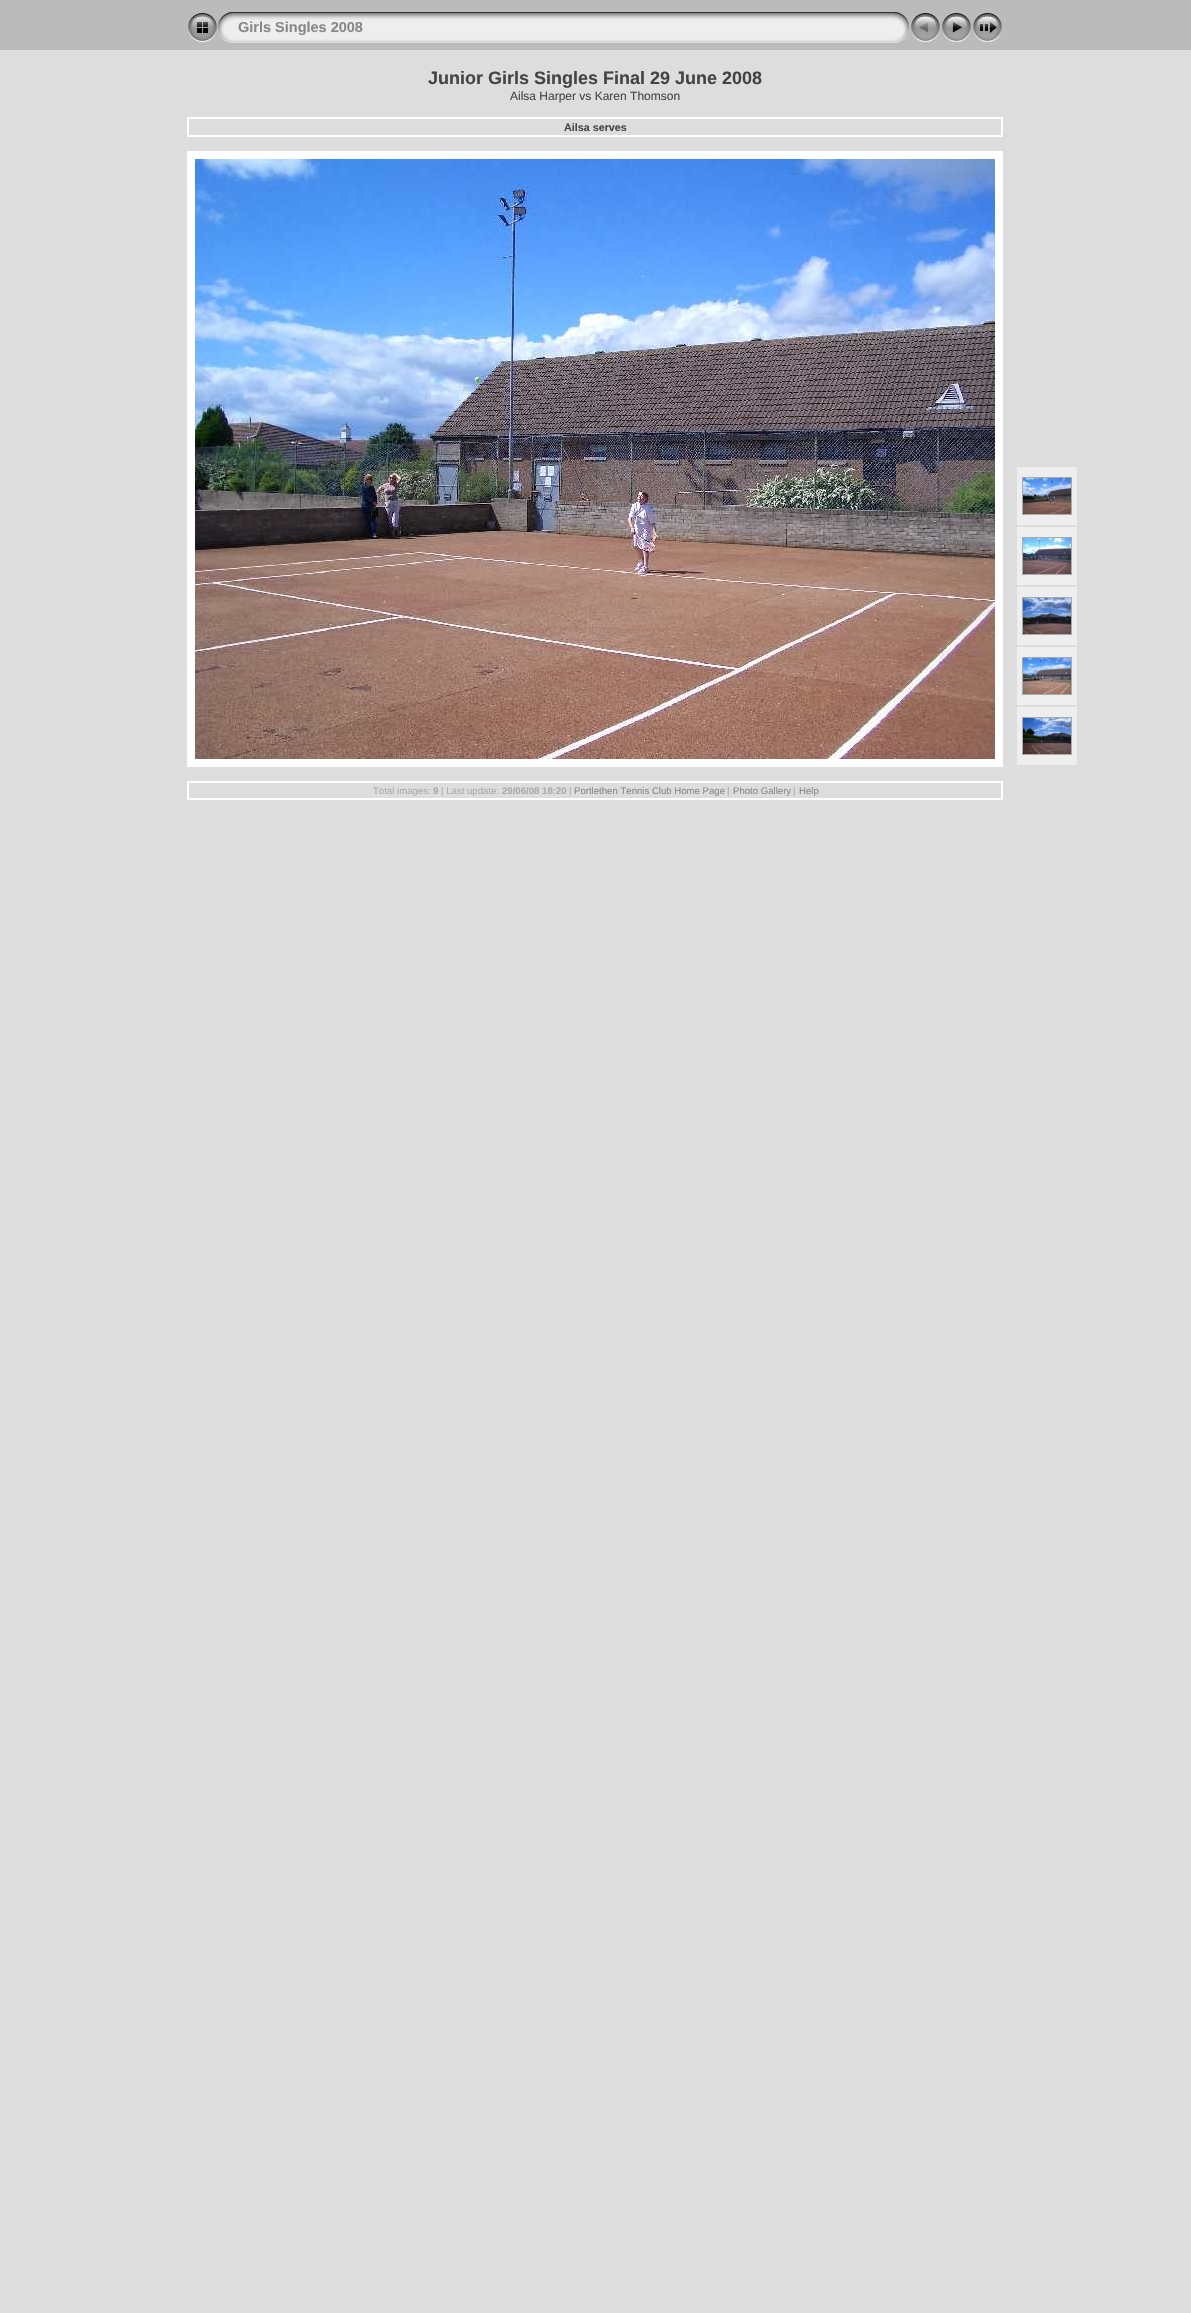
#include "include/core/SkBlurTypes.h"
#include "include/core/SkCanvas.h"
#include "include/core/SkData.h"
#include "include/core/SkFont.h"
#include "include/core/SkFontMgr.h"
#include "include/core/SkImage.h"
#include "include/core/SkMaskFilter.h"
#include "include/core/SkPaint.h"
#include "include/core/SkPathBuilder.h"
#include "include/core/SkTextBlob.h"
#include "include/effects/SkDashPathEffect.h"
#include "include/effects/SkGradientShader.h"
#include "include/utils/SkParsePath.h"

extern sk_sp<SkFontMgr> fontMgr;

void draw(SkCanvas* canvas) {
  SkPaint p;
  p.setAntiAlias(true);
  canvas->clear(SkColorSetRGB(221, 221, 221));
  p.setColor(SkColorSetRGB(187, 187, 187));
  canvas->drawRect(SkRect::MakeLTRB(0, 0, 1191, 50), p);
  canvas->drawImageRect(SkImages::DeferredFromEncodedData(SkData::MakeFromFileName("images/1.png")), SkRect::MakeLTRB(187, 13, 217, 42), SkSamplingOptions());
  canvas->drawImageRect(SkImages::DeferredFromEncodedData(SkData::MakeFromFileName("images/2.png")), SkRect::MakeLTRB(218, 12, 238, 43), SkSamplingOptions());
  canvas->drawImageRect(SkImages::DeferredFromEncodedData(SkData::MakeFromFileName("images/3.png")), SkRect::MakeLTRB(238, 12, 890, 43), SkSamplingOptions());
  canvas->drawImageRect(SkImages::DeferredFromEncodedData(SkData::MakeFromFileName("images/4.png")), SkRect::MakeLTRB(890, 12, 909, 43), SkSamplingOptions());
  canvas->drawImageRect(SkImages::DeferredFromEncodedData(SkData::MakeFromFileName("images/5.png")), SkRect::MakeLTRB(911, 13, 940, 42), SkSamplingOptions());
  canvas->drawImageRect(SkImages::DeferredFromEncodedData(SkData::MakeFromFileName("images/6.png")), SkRect::MakeLTRB(941, 13, 971, 42), SkSamplingOptions());
  canvas->drawImageRect(SkImages::DeferredFromEncodedData(SkData::MakeFromFileName("images/7.png")), SkRect::MakeLTRB(972, 13, 1002, 42), SkSamplingOptions());
  p.setColor(SK_ColorWHITE);
  canvas->drawRect(SkRect::MakeLTRB(187, 117, 1003, 119), p);
  canvas->drawRect(SkRect::MakeLTRB(1001, 117, 1003, 137), p);
  canvas->drawRect(SkRect::MakeLTRB(187, 135, 1003, 137), p);
  canvas->drawRect(SkRect::MakeLTRB(187, 117, 189, 137), p);
  p.setStyle(SkPaint::kStroke_Style);
  p.setStrokeWidth(8);
  canvas->drawRect(SkRect::MakeLTRB(191, 155, 999, 763), p);
  canvas->drawImageRect(SkImages::DeferredFromEncodedData(SkData::MakeFromFileName("images/8.png")), SkRect::MakeLTRB(195, 159, 995, 759), SkSamplingOptions());
  p.setStyle(SkPaint::kFill_Style);
  p.setColor(SkColorSetRGB(238, 238, 238));
  canvas->drawRect(SkRect::MakeLTRB(1017, 467, 1077, 525), p);
  p.setStyle(SkPaint::kStroke_Style);
  p.setStrokeWidth(1);
  p.setColor(SkColorSetRGB(170, 170, 170));
  canvas->drawRect(SkRect::MakeLTRB(1022.5f, 477.5f, 1071.5f, 514.5f), p);
  canvas->drawImageRect(SkImages::DeferredFromEncodedData(SkData::MakeFromFileName("images/9.png")), SkRect::MakeLTRB(1023, 478, 1071, 514), SkSamplingOptions());
  p.setStyle(SkPaint::kFill_Style);
  p.setColor(SkColorSetRGB(238, 238, 238));
  canvas->drawRect(SkRect::MakeLTRB(1017, 527, 1077, 585), p);
  p.setStyle(SkPaint::kStroke_Style);
  p.setColor(SkColorSetRGB(170, 170, 170));
  canvas->drawRect(SkRect::MakeLTRB(1022.5f, 537.5f, 1071.5f, 574.5f), p);
  canvas->drawImageRect(SkImages::DeferredFromEncodedData(SkData::MakeFromFileName("images/10.png")), SkRect::MakeLTRB(1023, 538, 1071, 574), SkSamplingOptions());
  p.setStyle(SkPaint::kFill_Style);
  p.setColor(SkColorSetRGB(238, 238, 238));
  canvas->drawRect(SkRect::MakeLTRB(1017, 587, 1077, 645), p);
  p.setStyle(SkPaint::kStroke_Style);
  p.setColor(SkColorSetRGB(170, 170, 170));
  canvas->drawRect(SkRect::MakeLTRB(1022.5f, 597.5f, 1071.5f, 634.5f), p);
  canvas->drawImageRect(SkImages::DeferredFromEncodedData(SkData::MakeFromFileName("images/11.png")), SkRect::MakeLTRB(1023, 598, 1071, 634), SkSamplingOptions());
  p.setStyle(SkPaint::kFill_Style);
  p.setColor(SkColorSetRGB(238, 238, 238));
  canvas->drawRect(SkRect::MakeLTRB(1017, 647, 1077, 705), p);
  p.setStyle(SkPaint::kStroke_Style);
  p.setColor(SkColorSetRGB(170, 170, 170));
  canvas->drawRect(SkRect::MakeLTRB(1022.5f, 657.5f, 1071.5f, 694.5f), p);
  canvas->drawImageRect(SkImages::DeferredFromEncodedData(SkData::MakeFromFileName("images/12.png")), SkRect::MakeLTRB(1023, 658, 1071, 694), SkSamplingOptions());
  p.setStyle(SkPaint::kFill_Style);
  p.setColor(SkColorSetRGB(238, 238, 238));
  canvas->drawRect(SkRect::MakeLTRB(1017, 707, 1077, 765), p);
  p.setStyle(SkPaint::kStroke_Style);
  p.setColor(SkColorSetRGB(170, 170, 170));
  canvas->drawRect(SkRect::MakeLTRB(1022.5f, 717.5f, 1071.5f, 754.5f), p);
  canvas->drawImageRect(SkImages::DeferredFromEncodedData(SkData::MakeFromFileName("images/13.png")), SkRect::MakeLTRB(1023, 718, 1071, 754), SkSamplingOptions());
  p.setStyle(SkPaint::kFill_Style);
  p.setColor(SK_ColorWHITE);
  canvas->drawRect(SkRect::MakeLTRB(187, 781, 1003, 783), p);
  canvas->drawRect(SkRect::MakeLTRB(1001, 781, 1003, 800), p);
  canvas->drawRect(SkRect::MakeLTRB(187, 798, 1003, 800), p);
  canvas->drawRect(SkRect::MakeLTRB(187, 781, 189, 800), p);
  SkFont font1(fontMgr->matchFamilyStyle("Liberation Sans", SkFontStyle::Bold()), 14.5f);
  font1.setSubpixel(true);
  p.setColor(SkColorSetRGB(136, 136, 136));
  canvas->drawString("Girls Singles 2008", 238, 32, font1, p);
  SkFont font2(fontMgr->matchFamilyStyle("Liberation Sans", SkFontStyle::Bold()), 18);
  font2.setSubpixel(true);
  p.setColor(SkColorSetRGB(68, 68, 68));
  canvas->drawString("Junior Girls Singles Final 29 June 2008", 428, 84, font2, p);
  SkFont font3(fontMgr->matchFamilyStyle("Liberation Sans", SkFontStyle::Normal()), 12);
  font3.setSubpixel(true);
  canvas->drawString("Ailsa Harper vs Karen Thomson", 510, 100, font3, p);
  SkFont font4(fontMgr->matchFamilyStyle("Liberation Sans", SkFontStyle::Bold()), 10.75f);
  font4.setSubpixel(true);
  canvas->drawString("Ailsa serves", 564, 131, font4, p);
  SkFont font5(fontMgr->matchFamilyStyle("Liberation Sans", SkFontStyle::Normal()), 9.6f);
  font5.setSubpixel(true);
  p.setColor(SkColorSetRGB(170, 170, 170));
  canvas->drawString("Total images:", 373, 794, font5, p);
  SkFont font6(fontMgr->matchFamilyStyle("Liberation Sans", SkFontStyle::Bold()), 9.6f);
  font6.setSubpixel(true);
  canvas->drawString("9", 433, 794, font6, p);
  canvas->drawString("| Last update:", 441, 794, font5, p);
  canvas->drawString("29/06/08 18:20", 502, 794, font6, p);
  canvas->drawString("|", 569, 794, font5, p);
  p.setColor(SkColorSetRGB(136, 136, 136));
  canvas->drawString("Portlethen Tennis Club Home Page", 574, 794, font5, p);
  p.setColor(SkColorSetRGB(170, 170, 170));
  canvas->drawString("|", 727, 794, font5, p);
  p.setColor(SkColorSetRGB(136, 136, 136));
  canvas->drawString("Photo Gallery", 733, 794, font5, p);
  p.setColor(SkColorSetRGB(170, 170, 170));
  canvas->drawString("|", 793, 794, font5, p);
  p.setColor(SkColorSetRGB(136, 136, 136));
  canvas->drawString("Help", 799, 794, font5, p);
}
